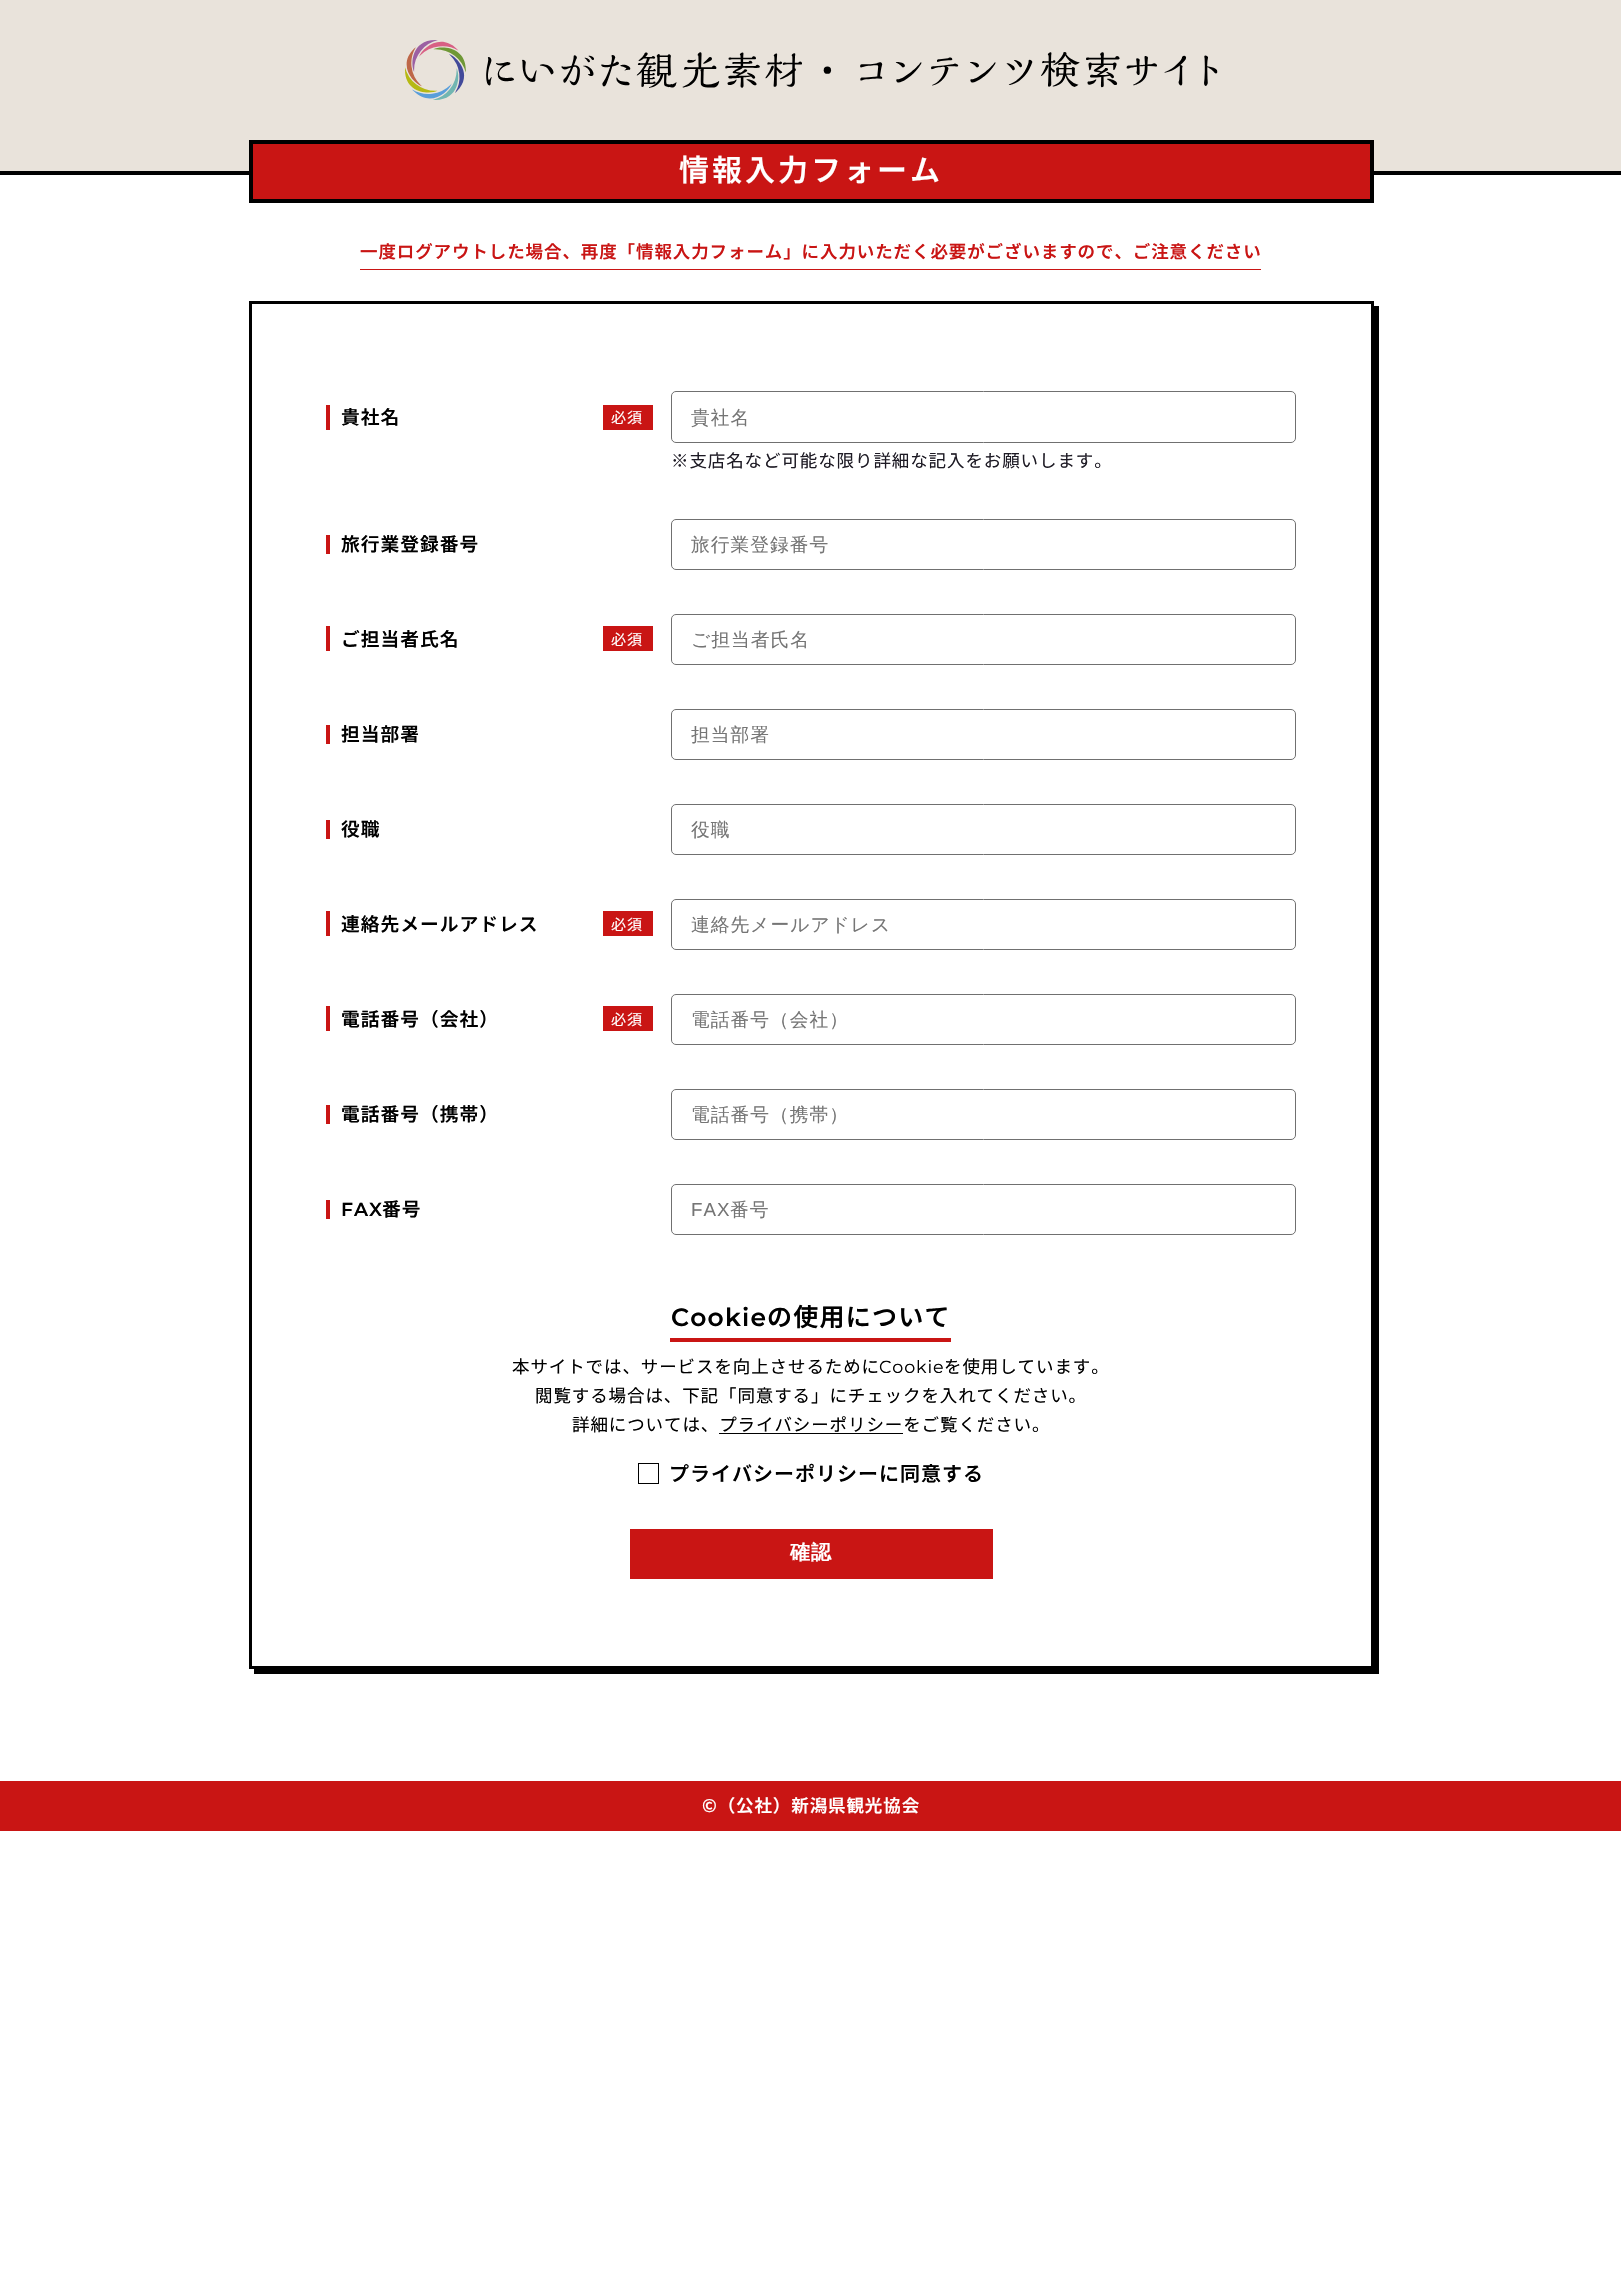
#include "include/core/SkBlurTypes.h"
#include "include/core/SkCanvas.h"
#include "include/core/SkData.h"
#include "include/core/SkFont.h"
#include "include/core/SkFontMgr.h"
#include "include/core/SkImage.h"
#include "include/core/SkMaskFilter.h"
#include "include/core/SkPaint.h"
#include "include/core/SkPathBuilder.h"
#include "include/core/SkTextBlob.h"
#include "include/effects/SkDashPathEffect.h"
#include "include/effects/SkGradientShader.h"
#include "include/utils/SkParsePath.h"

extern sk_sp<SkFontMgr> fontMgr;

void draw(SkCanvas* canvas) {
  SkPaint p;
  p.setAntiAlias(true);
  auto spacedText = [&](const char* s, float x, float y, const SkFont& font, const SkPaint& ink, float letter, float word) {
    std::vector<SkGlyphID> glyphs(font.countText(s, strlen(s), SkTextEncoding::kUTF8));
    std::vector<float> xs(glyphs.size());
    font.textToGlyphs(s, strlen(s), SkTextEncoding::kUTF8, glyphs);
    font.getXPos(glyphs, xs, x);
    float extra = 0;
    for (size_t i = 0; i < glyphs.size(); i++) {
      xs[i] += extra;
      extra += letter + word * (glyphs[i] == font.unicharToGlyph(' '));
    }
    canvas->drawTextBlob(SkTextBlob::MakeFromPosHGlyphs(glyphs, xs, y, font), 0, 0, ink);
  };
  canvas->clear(SK_ColorWHITE);
  p.setColor(SkColorSetRGB(233, 227, 219));
  canvas->drawRect(SkRect::MakeLTRB(0, 0, 1621, 171), p);
  p.setColor(SK_ColorBLACK);
  canvas->drawRect(SkRect::MakeLTRB(0, 171, 1621, 175), p);
  canvas->drawImageRect(SkImages::DeferredFromEncodedData(SkData::MakeFromFileName("images/1.png")), SkRect::MakeLTRB(405, 40, 1218, 100), SkSamplingOptions());
  p.setColor(SkColorSetRGB(201, 21, 20));
  canvas->drawRect(SkRect::MakeLTRB(251, 142, 1372, 201), p);
  p.setStyle(SkPaint::kStroke_Style);
  p.setStrokeWidth(4);
  p.setColor(SK_ColorBLACK);
  canvas->drawRect(SkRect::MakeLTRB(251, 142, 1372, 201), p);
  p.setStyle(SkPaint::kFill_Style);
  p.setColor(SkColorSetRGB(201, 21, 20));
  canvas->drawRect(SkRect::MakeLTRB(360, 269, 1261, 270), p);
  p.setColor(SK_ColorBLACK);
  canvas->drawPath(SkPathBuilder().moveTo(254, 1669).lineTo(254, 1674).lineTo(1379, 1674).lineTo(1379, 306).lineTo(1374, 306).lineTo(1374, 1669).close().detach(), p);
  p.setStyle(SkPaint::kStroke_Style);
  p.setStrokeWidth(3);
  canvas->drawRect(SkRect::MakeLTRB(250.5f, 302.5f, 1372.5f, 1667.5f), p);
  p.setStyle(SkPaint::kFill_Style);
  p.setColor(SkColorSetRGB(201, 21, 20));
  canvas->drawRect(SkRect::MakeLTRB(326, 405, 330, 430), p);
  canvas->drawRect(SkRect::MakeLTRB(603, 405, 653, 430), p);
  p.setStyle(SkPaint::kStroke_Style);
  p.setStrokeWidth(1);
  p.setColor(SkColorSetRGB(112, 112, 112));
  canvas->drawRoundRect(SkRect::MakeLTRB(671.5f, 391.5f, 1295.5f, 442.5f), 4.5f, 4.5f, p);
  p.setStyle(SkPaint::kFill_Style);
  p.setColor(SkColorSetRGB(201, 21, 20));
  canvas->drawRect(SkRect::MakeLTRB(326, 535, 330, 554), p);
  p.setStyle(SkPaint::kStroke_Style);
  p.setColor(SkColorSetRGB(112, 112, 112));
  canvas->drawRoundRect(SkRect::MakeLTRB(671.5f, 519.5f, 1295.5f, 569.5f), 4.5f, 4.5f, p);
  p.setStyle(SkPaint::kFill_Style);
  p.setColor(SkColorSetRGB(201, 21, 20));
  canvas->drawRect(SkRect::MakeLTRB(326, 626, 330, 651), p);
  canvas->drawRect(SkRect::MakeLTRB(603, 626, 653, 651), p);
  p.setStyle(SkPaint::kStroke_Style);
  p.setColor(SkColorSetRGB(112, 112, 112));
  canvas->drawRoundRect(SkRect::MakeLTRB(671.5f, 614.5f, 1295.5f, 664.5f), 4.5f, 4.5f, p);
  p.setStyle(SkPaint::kFill_Style);
  p.setColor(SkColorSetRGB(201, 21, 20));
  canvas->drawRect(SkRect::MakeLTRB(326, 725, 330, 744), p);
  p.setStyle(SkPaint::kStroke_Style);
  p.setColor(SkColorSetRGB(112, 112, 112));
  canvas->drawRoundRect(SkRect::MakeLTRB(671.5f, 709.5f, 1295.5f, 759.5f), 4.5f, 4.5f, p);
  p.setStyle(SkPaint::kFill_Style);
  p.setColor(SkColorSetRGB(201, 21, 20));
  canvas->drawRect(SkRect::MakeLTRB(326, 820, 330, 839), p);
  p.setStyle(SkPaint::kStroke_Style);
  p.setColor(SkColorSetRGB(112, 112, 112));
  canvas->drawRoundRect(SkRect::MakeLTRB(671.5f, 804.5f, 1295.5f, 854.5f), 4.5f, 4.5f, p);
  p.setStyle(SkPaint::kFill_Style);
  p.setColor(SkColorSetRGB(201, 21, 20));
  canvas->drawRect(SkRect::MakeLTRB(326, 911, 330, 936), p);
  canvas->drawRect(SkRect::MakeLTRB(603, 911, 653, 936), p);
  p.setStyle(SkPaint::kStroke_Style);
  p.setColor(SkColorSetRGB(112, 112, 112));
  canvas->drawRoundRect(SkRect::MakeLTRB(671.5f, 899.5f, 1295.5f, 949.5f), 4.5f, 4.5f, p);
  p.setStyle(SkPaint::kFill_Style);
  p.setColor(SkColorSetRGB(201, 21, 20));
  canvas->drawRect(SkRect::MakeLTRB(326, 1006, 330, 1031), p);
  canvas->drawRect(SkRect::MakeLTRB(603, 1006, 653, 1031), p);
  p.setStyle(SkPaint::kStroke_Style);
  p.setColor(SkColorSetRGB(112, 112, 112));
  canvas->drawRoundRect(SkRect::MakeLTRB(671.5f, 994.5f, 1295.5f, 1044.5f), 4.5f, 4.5f, p);
  p.setStyle(SkPaint::kFill_Style);
  p.setColor(SkColorSetRGB(201, 21, 20));
  canvas->drawRect(SkRect::MakeLTRB(326, 1105, 330, 1124), p);
  p.setStyle(SkPaint::kStroke_Style);
  p.setColor(SkColorSetRGB(112, 112, 112));
  canvas->drawRoundRect(SkRect::MakeLTRB(671.5f, 1089.5f, 1295.5f, 1139.5f), 4.5f, 4.5f, p);
  p.setStyle(SkPaint::kFill_Style);
  p.setColor(SkColorSetRGB(201, 21, 20));
  canvas->drawRect(SkRect::MakeLTRB(326, 1200, 330, 1219), p);
  p.setStyle(SkPaint::kStroke_Style);
  p.setColor(SkColorSetRGB(112, 112, 112));
  canvas->drawRoundRect(SkRect::MakeLTRB(671.5f, 1184.5f, 1295.5f, 1234.5f), 4.5f, 4.5f, p);
  p.setStyle(SkPaint::kFill_Style);
  p.setColor(SkColorSetRGB(201, 21, 20));
  canvas->drawRect(SkRect::MakeLTRB(670, 1338, 951, 1342), p);
  p.setColor(SK_ColorBLACK);
  canvas->drawRect(SkRect::MakeLTRB(719, 1433, 903, 1434), p);
  p.setStyle(SkPaint::kStroke_Style);
  canvas->drawRect(SkRect::MakeLTRB(638.5f, 1463.5f, 658.5f, 1483.5f), p);
  p.setStyle(SkPaint::kFill_Style);
  p.setColor(SkColorSetRGB(201, 21, 20));
  canvas->drawRect(SkRect::MakeLTRB(630, 1529, 993, 1579), p);
  canvas->drawRect(SkRect::MakeLTRB(0, 1781, 1621, 1831), p);
  SkFont font1(fontMgr->matchFamilyStyle("Noto Sans JP", SkFontStyle(600, SkFontStyle::kNormal_Width, SkFontStyle::kUpright_Slant)), 30);
  font1.setSubpixel(true);
  p.setColor(SK_ColorWHITE);
  spacedText("情報入力フォーム", 679, 181, font1, p, 3, 0);
  SkFont font2(fontMgr->matchFamilyStyle("Noto Sans JP", SkFontStyle(600, SkFontStyle::kNormal_Width, SkFontStyle::kUpright_Slant)), 17.5f);
  font2.setSubpixel(true);
  p.setColor(SkColorSetRGB(201, 21, 20));
  spacedText("一度ログアウトした場合、再度「情報入力フォーム」に入力いただく必要がございますので、ご注意ください", 360, 258, font2, p, 0.9f, 0);
  SkFont font3(fontMgr->matchFamilyStyle("Noto Sans JP", SkFontStyle(600, SkFontStyle::kNormal_Width, SkFontStyle::kUpright_Slant)), 18.75f);
  font3.setSubpixel(true);
  p.setColor(SK_ColorBLACK);
  spacedText("貴社名", 341, 424, font3, p, 1, 0);
  SkFont font4(fontMgr->matchFamilyStyle("Noto Sans JP", SkFontStyle::Normal()), 15);
  font4.setSubpixel(true);
  p.setColor(SK_ColorWHITE);
  spacedText("必須", 611, 423, font4, p, 1, 0);
  SkFont font5(fontMgr->matchFamilyStyle("WenQuanYi Zen Hei", SkFontStyle(500, SkFontStyle::kNormal_Width, SkFontStyle::kUpright_Slant)), 18.75f);
  font5.setSubpixel(true);
  p.setColor(SkColorSetRGB(117, 117, 117));
  spacedText("貴社名", 691, 424, font5, p, 1, 0);
  SkFont font6(fontMgr->matchFamilyStyle("Noto Sans JP", SkFontStyle::Normal()), 17.5f);
  font6.setSubpixel(true);
  p.setColor(SkColorSetRGB(29, 26, 36));
  spacedText("※支店名など可能な限り詳細な記入をお願いします。", 671, 467, font6, p, 0.9f, 0);
  p.setColor(SK_ColorBLACK);
  spacedText("旅行業登録番号", 341, 551, font3, p, 1, 0);
  p.setColor(SkColorSetRGB(117, 117, 117));
  spacedText("旅行業登録番号", 691, 551, font5, p, 1, 0);
  p.setColor(SK_ColorBLACK);
  spacedText("ご担当者氏名", 341, 646, font3, p, 1, 0);
  p.setColor(SK_ColorWHITE);
  spacedText("必須", 611, 645, font4, p, 1, 0);
  p.setColor(SkColorSetRGB(117, 117, 117));
  spacedText("ご担当者氏名", 691, 646, font5, p, 1, 0);
  p.setColor(SK_ColorBLACK);
  spacedText("担当部署", 341, 741, font3, p, 1, 0);
  p.setColor(SkColorSetRGB(117, 117, 117));
  spacedText("担当部署", 691, 741, font5, p, 1, 0);
  p.setColor(SK_ColorBLACK);
  spacedText("役職", 341, 836, font3, p, 1, 0);
  p.setColor(SkColorSetRGB(117, 117, 117));
  spacedText("役職", 691, 836, font5, p, 1, 0);
  p.setColor(SK_ColorBLACK);
  spacedText("連絡先メールアドレス", 341, 931, font3, p, 1, 0);
  p.setColor(SK_ColorWHITE);
  spacedText("必須", 611, 930, font4, p, 1, 0);
  p.setColor(SkColorSetRGB(117, 117, 117));
  spacedText("連絡先メールアドレス", 691, 931, font5, p, 1, 0);
  p.setColor(SK_ColorBLACK);
  spacedText("電話番号（会社）", 341, 1026, font3, p, 1, 0);
  p.setColor(SK_ColorWHITE);
  spacedText("必須", 611, 1025, font4, p, 1, 0);
  p.setColor(SkColorSetRGB(117, 117, 117));
  spacedText("電話番号（会社）", 691, 1026, font5, p, 1, 0);
  p.setColor(SK_ColorBLACK);
  spacedText("電話番号（携帯）", 341, 1121, font3, p, 1, 0);
  p.setColor(SkColorSetRGB(117, 117, 117));
  spacedText("電話番号（携帯）", 691, 1121, font5, p, 1, 0);
  SkFont font7(fontMgr->matchFamilyStyle("Montserrat", SkFontStyle(600, SkFontStyle::kNormal_Width, SkFontStyle::kUpright_Slant)), 18.75f);
  font7.setSubpixel(true);
  p.setColor(SK_ColorBLACK);
  spacedText("FAX", 341, 1216, font7, p, 1, 0);
  spacedText("番号", 382, 1216, font3, p, 1, 0);
  SkFont font8(fontMgr->matchFamilyStyle("Liberation Sans", SkFontStyle::Normal()), 18.75f);
  font8.setSubpixel(true);
  p.setColor(SkColorSetRGB(117, 117, 117));
  spacedText("FAX", 691, 1216, font8, p, 1, 0);
  spacedText("番号", 730, 1216, font5, p, 1, 0);
  SkFont font9(fontMgr->matchFamilyStyle("Montserrat", SkFontStyle(600, SkFontStyle::kNormal_Width, SkFontStyle::kUpright_Slant)), 25);
  font9.setSubpixel(true);
  p.setColor(SK_ColorBLACK);
  spacedText("Cookie", 671, 1326, font9, p, 1.25f, 0);
  SkFont font10(fontMgr->matchFamilyStyle("Noto Sans JP", SkFontStyle(600, SkFontStyle::kNormal_Width, SkFontStyle::kUpright_Slant)), 25);
  font10.setSubpixel(true);
  spacedText("の使用について", 767, 1326, font10, p, 1.25f, 0);
  spacedText("本サイトでは、サービスを向上させるために", 512, 1373, font6, p, 0.9f, 0);
  SkFont font11(fontMgr->matchFamilyStyle("Montserrat", SkFontStyle::Normal()), 17.5f);
  font11.setSubpixel(true);
  spacedText("Cookie", 879, 1373, font11, p, 0.9f, 0);
  spacedText("を使用しています。", 944, 1373, font6, p, 0.9f, 0);
  spacedText("閲覧する場合は、下記「同意する」にチェックを入れてください。", 535, 1402, font6, p, 0.9f, 0);
  spacedText("詳細については、プライバシーポリシーをご覧ください。", 572, 1431, font6, p, 0.9f, 0);
  SkFont font12(fontMgr->matchFamilyStyle("Noto Sans JP", SkFontStyle(600, SkFontStyle::kNormal_Width, SkFontStyle::kUpright_Slant)), 20);
  font12.setSubpixel(true);
  spacedText("プライバシーポリシーに同意する", 669, 1481, font12, p, 1, 0);
  SkFont font13(fontMgr->matchFamilyStyle("WenQuanYi Zen Hei", SkFontStyle::Bold()), 20);
  font13.setSubpixel(true);
  p.setColor(SK_ColorWHITE);
  spacedText("確認", 790, 1559, font13, p, 1, 0);
  spacedText("©（公社）新潟県観光協会", 702, 1812, font2, p, 0.9f, 0);
}
